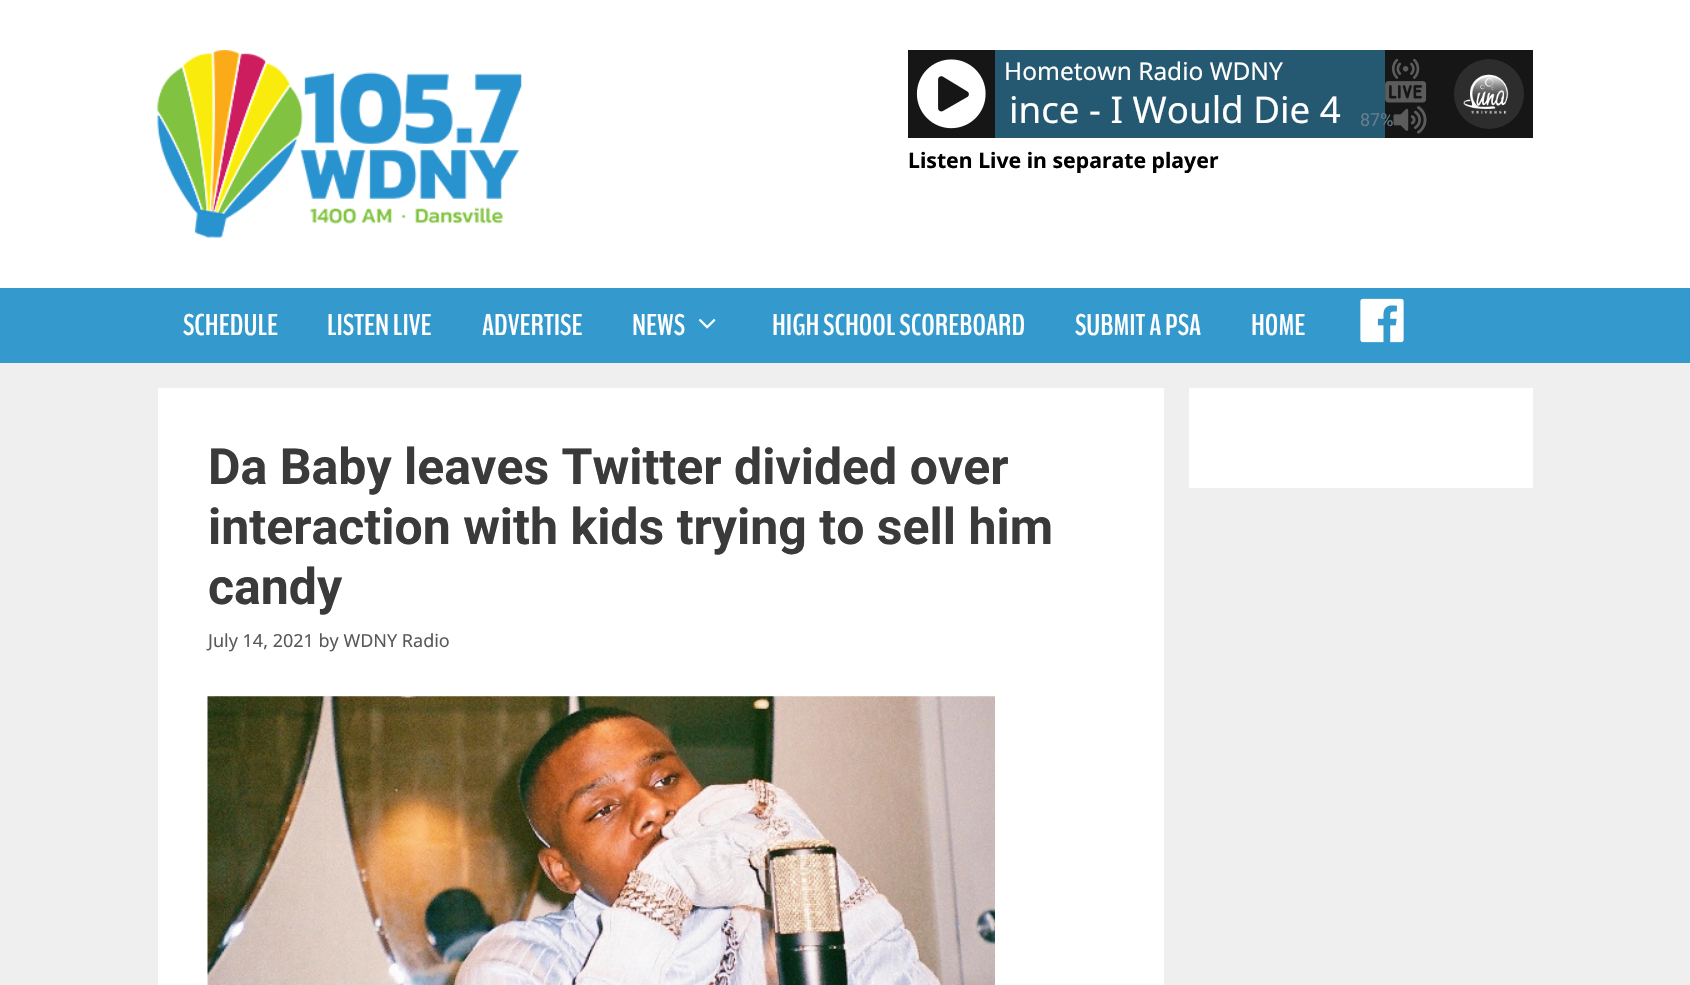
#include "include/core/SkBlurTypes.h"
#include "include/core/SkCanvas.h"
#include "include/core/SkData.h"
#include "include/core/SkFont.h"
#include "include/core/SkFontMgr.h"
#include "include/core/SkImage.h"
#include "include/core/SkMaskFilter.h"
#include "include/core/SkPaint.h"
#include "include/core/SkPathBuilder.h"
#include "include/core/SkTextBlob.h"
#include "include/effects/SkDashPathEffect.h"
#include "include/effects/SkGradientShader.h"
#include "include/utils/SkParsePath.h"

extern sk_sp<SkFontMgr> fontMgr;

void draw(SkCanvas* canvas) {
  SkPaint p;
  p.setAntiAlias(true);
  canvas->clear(SkColorSetRGB(239, 239, 239));
  p.setColor(SK_ColorWHITE);
  canvas->drawRect(SkRect::MakeLTRB(0, 0, 1690, 288), p);
  canvas->drawImageRect(SkImages::DeferredFromEncodedData(SkData::MakeFromFileName("images/1.png")), SkRect::MakeLTRB(157, 50, 522, 238), SkSamplingOptions());
  p.setColor(SkColorSetRGB(22, 22, 22));
  canvas->drawRect(SkRect::MakeLTRB(908, 50, 1533, 138), p);
  canvas->drawImageRect(SkImages::DeferredFromEncodedData(SkData::MakeFromFileName("images/2.png")), SkRect::MakeLTRB(916, 59, 986, 129), SkSamplingOptions());
  p.setColor(SkColorSetRGB(37, 88, 113));
  canvas->drawRect(SkRect::MakeLTRB(995, 50, 1385, 138), p);
  canvas->drawImageRect(SkImages::DeferredFromEncodedData(SkData::MakeFromFileName("images/3.png")), SkRect::MakeLTRB(1385, 59, 1427, 103), SkSamplingOptions());
  p.setColor(SkColorSetRGB(45, 45, 45));
  canvas->drawCircle(1489, 94, 35, p);
  canvas->drawImageRect(SkImages::DeferredFromEncodedData(SkData::MakeFromFileName("images/4.png")), SkRect::MakeLTRB(1463, 74, 1509, 114), SkSamplingOptions());
  canvas->drawImageRect(SkImages::DeferredFromEncodedData(SkData::MakeFromFileName("images/5.png")), SkRect::MakeLTRB(1393, 106, 1427, 134), SkSamplingOptions());
  p.setColor(SkColorSetRGB(52, 153, 204));
  canvas->drawRect(SkRect::MakeLTRB(0, 288, 1690, 363), p);
  canvas->drawImageRect(SkImages::DeferredFromEncodedData(SkData::MakeFromFileName("images/6.png")), SkRect::MakeLTRB(698, 318, 716, 329), SkSamplingOptions());
  canvas->drawImageRect(SkImages::DeferredFromEncodedData(SkData::MakeFromFileName("images/7.png")), SkRect::MakeLTRB(1360, 298, 1404, 343), SkSamplingOptions());
  p.setColor(SK_ColorWHITE);
  canvas->drawRect(SkRect::MakeLTRB(158, 388, 1164, 985), p);
  canvas->drawImageRect(SkImages::DeferredFromEncodedData(SkData::MakeFromFileName("images/8.png")), SkRect::MakeLTRB(207, 696, 995, 985), SkSamplingOptions());
  canvas->drawRect(SkRect::MakeLTRB(1189, 388, 1533, 488), p);
  SkFont font1(fontMgr->matchFamilyStyle("Noto Sans", SkFontStyle::Normal()), 24.5f);
  font1.setSubpixel(true);
  canvas->drawString("Hometown Radio WDNY", 1004, 80, font1, p);
  SkFont font2(fontMgr->matchFamilyStyle("Noto Sans", SkFontStyle::Normal()), 36.75f);
  font2.setSubpixel(true);
  canvas->drawString("ince - I Would Die 4", 1009, 123, font2, p);
  SkFont font3(fontMgr->matchFamilyStyle("Roboto", SkFontStyle::Normal()), 18);
  font3.setSubpixel(true);
  p.setColor(SkColorSetRGB(100, 127, 140));
  canvas->drawString("87%", 1360, 126, font3, p);
  SkFont font4(fontMgr->matchFamilyStyle("Noto Sans", SkFontStyle::Bold()), 21.25f);
  font4.setSubpixel(true);
  p.setColor(SK_ColorBLACK);
  canvas->drawString("Listen Live in separate player", 908, 168, font4, p);
  SkFont font5(fontMgr->matchFamilyStyle("BenchNine", SkFontStyle::Bold()), 30);
  font5.setSubpixel(true);
  p.setColor(SK_ColorWHITE);
  canvas->drawString("SCHEDULE", 183, 335, font5, p);
  canvas->drawString("LISTEN LIVE", 327, 335, font5, p);
  canvas->drawString("ADVERTISE", 482, 335, font5, p);
  canvas->drawString("NEWS", 632, 335, font5, p);
  canvas->drawString("HIGH SCHOOL SCOREBOARD", 772, 335, font5, p);
  canvas->drawString("SUBMIT A PSA", 1075, 335, font5, p);
  canvas->drawString("HOME", 1251, 335, font5, p);
  SkFont font6(fontMgr->matchFamilyStyle("Roboto", SkFontStyle::Bold()), 50);
  font6.setSubpixel(true);
  p.setColor(SkColorSetRGB(58, 58, 58));
  canvas->drawString("Da Baby leaves Twitter divided over", 208, 484, font6, p);
  canvas->drawString("interaction with kids trying to sell him", 208, 544, font6, p);
  canvas->drawString("candy", 208, 604, font6, p);
  SkFont font7(fontMgr->matchFamilyStyle("Noto Sans", SkFontStyle::Normal()), 18);
  font7.setSubpixel(true);
  p.setColor(SkColorSetRGB(89, 89, 89));
  canvas->drawString("July 14, 2021 by WDNY Radio", 208, 647, font7, p);
}
